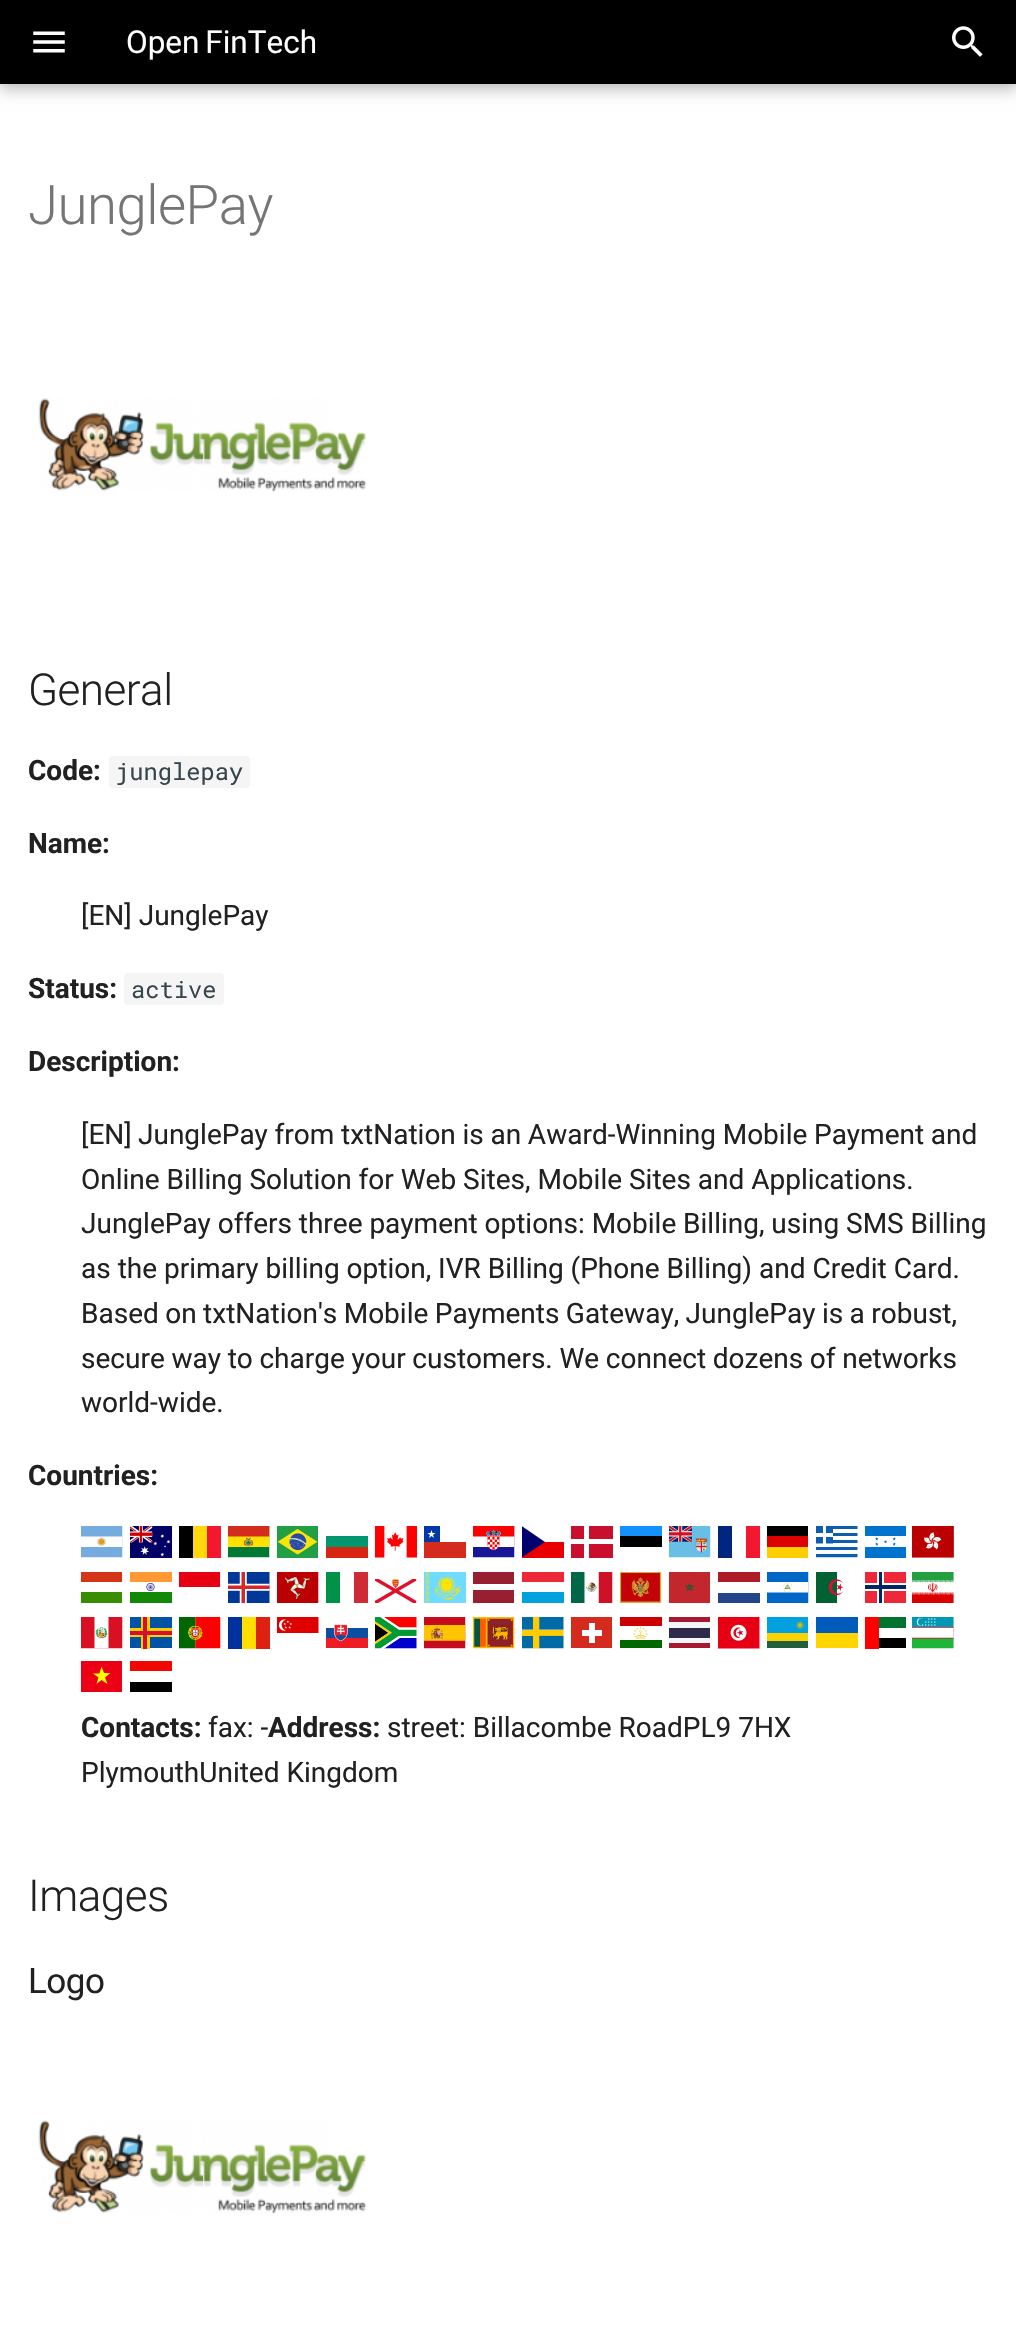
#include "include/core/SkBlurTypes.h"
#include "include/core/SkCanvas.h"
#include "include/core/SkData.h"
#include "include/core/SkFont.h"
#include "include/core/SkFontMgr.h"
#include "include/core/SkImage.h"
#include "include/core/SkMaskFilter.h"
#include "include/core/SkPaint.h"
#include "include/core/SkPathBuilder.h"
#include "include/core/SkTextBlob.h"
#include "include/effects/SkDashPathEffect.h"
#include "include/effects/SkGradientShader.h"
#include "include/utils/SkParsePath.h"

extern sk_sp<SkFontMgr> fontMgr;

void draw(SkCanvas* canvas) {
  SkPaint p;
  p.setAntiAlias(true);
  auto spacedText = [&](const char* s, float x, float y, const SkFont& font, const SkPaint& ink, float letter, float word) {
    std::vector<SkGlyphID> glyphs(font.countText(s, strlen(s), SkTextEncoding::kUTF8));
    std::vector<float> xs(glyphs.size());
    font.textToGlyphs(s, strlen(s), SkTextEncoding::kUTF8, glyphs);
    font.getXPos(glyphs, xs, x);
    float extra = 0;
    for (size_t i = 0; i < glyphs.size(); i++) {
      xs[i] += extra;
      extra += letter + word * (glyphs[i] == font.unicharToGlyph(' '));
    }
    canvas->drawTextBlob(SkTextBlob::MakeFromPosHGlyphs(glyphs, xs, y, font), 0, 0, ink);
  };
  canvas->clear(SK_ColorWHITE);
  p.setColor(SkColorSetARGB(51, 0, 0, 0));
  p.setMaskFilter(SkMaskFilter::MakeBlur(kNormal_SkBlurStyle, 7));
  canvas->drawRect(SkRect::MakeLTRB(0, 7, 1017, 91), p);
  p.setMaskFilter(nullptr);
  p.setColor(SkColorSetARGB(26, 0, 0, 0));
  p.setMaskFilter(SkMaskFilter::MakeBlur(kNormal_SkBlurStyle, 3.5f));
  canvas->drawRect(SkRect::MakeLTRB(0, 0, 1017, 84), p);
  p.setMaskFilter(nullptr);
  p.setColor(SK_ColorBLACK);
  canvas->drawRect(SkRect::MakeLTRB(0, 0, 1016, 84), p);
  canvas->drawImageRect(SkImages::DeferredFromEncodedData(SkData::MakeFromFileName("images/1.png")), SkRect::MakeLTRB(33, 31, 65, 53), SkSamplingOptions());
  canvas->drawImageRect(SkImages::DeferredFromEncodedData(SkData::MakeFromFileName("images/2.png")), SkRect::MakeLTRB(952, 26, 983, 57), SkSamplingOptions());
  canvas->drawImageRect(SkImages::DeferredFromEncodedData(SkData::MakeFromFileName("images/3.png")), SkRect::MakeLTRB(38, 398, 367, 492), SkSamplingOptions());
  p.setColor(SkColorSetRGB(245, 245, 245));
  canvas->drawRoundRect(SkRect::MakeLTRB(109, 756, 250, 788), 4, 4, p);
  canvas->drawRoundRect(SkRect::MakeLTRB(124, 973, 224, 1005), 4, 4, p);
  canvas->drawImageRect(SkImages::DeferredFromEncodedData(SkData::MakeFromFileName("images/4.png")), SkRect::MakeLTRB(81, 1526, 123, 1558), SkSamplingOptions());
  canvas->drawImageRect(SkImages::DeferredFromEncodedData(SkData::MakeFromFileName("images/5.png")), SkRect::MakeLTRB(130, 1526, 172, 1558), SkSamplingOptions());
  p.setColor(SK_ColorBLACK);
  canvas->drawRect(SkRect::MakeLTRB(179, 1526, 193, 1558), p);
  p.setColor(SkColorSetRGB(255, 217, 12));
  canvas->drawRect(SkRect::MakeLTRB(193, 1526, 207, 1558), p);
  p.setColor(SkColorSetRGB(243, 24, 48));
  canvas->drawRect(SkRect::MakeLTRB(207, 1526, 221, 1558), p);
  canvas->drawImageRect(SkImages::DeferredFromEncodedData(SkData::MakeFromFileName("images/6.png")), SkRect::MakeLTRB(228, 1526, 270, 1558), SkSamplingOptions());
  canvas->drawImageRect(SkImages::DeferredFromEncodedData(SkData::MakeFromFileName("images/7.png")), SkRect::MakeLTRB(277, 1526, 318, 1558), SkSamplingOptions());
  canvas->drawImageRect(SkImages::DeferredFromEncodedData(SkData::MakeFromFileName("images/8.png")), SkRect::MakeLTRB(375, 1526, 417, 1558), SkSamplingOptions());
  p.setColor(SkColorSetRGB(0, 57, 166));
  canvas->drawRect(SkRect::MakeLTRB(424, 1526, 440, 1542), p);
  canvas->drawImageRect(SkImages::DeferredFromEncodedData(SkData::MakeFromFileName("images/9.png")), SkRect::MakeLTRB(473, 1526, 515, 1558), SkSamplingOptions());
  p.setColor(SkColorSetRGB(232, 0, 0));
  canvas->drawRect(SkRect::MakeLTRB(522, 1542, 564, 1558), p);
  canvas->save();
  canvas->clipRect(SkRect::MakeLTRB(522, 1526, 564, 1558));
  p.setColor(SkColorSetRGB(0, 0, 111));
  canvas->drawPath(SkPathBuilder(SkPathFillType::kEvenOdd).moveTo(521.5f, 1526).lineTo(545, 1542).lineTo(521.5f, 1557.5f).close().detach(), p);
  canvas->restore();
  p.setColor(SkColorSetRGB(200, 16, 46));
  canvas->drawRect(SkRect::MakeLTRB(571, 1526, 613, 1558), p);
  p.setColor(SK_ColorWHITE);
  canvas->drawPath(SkPathBuilder(SkPathFillType::kEvenOdd).moveTo(434, 1538).lineTo(431.5f, 1536).lineTo(429, 1538).lineTo(430, 1535).lineTo(427.5f, 1533).lineTo(430.5f, 1533).lineTo(431.5f, 1530).lineTo(432.5f, 1533).lineTo(435.5f, 1533).lineTo(433, 1535).close().detach(), p);
  canvas->drawRect(SkRect::MakeLTRB(584, 1526, 589, 1558), p);
  p.setColor(SkColorSetRGB(18, 145, 255));
  canvas->drawRect(SkRect::MakeLTRB(620, 1526, 662, 1536), p);
  canvas->drawImageRect(SkImages::DeferredFromEncodedData(SkData::MakeFromFileName("images/10.png")), SkRect::MakeLTRB(669, 1526, 711, 1558), SkSamplingOptions());
  p.setColor(SkColorSetRGB(0, 38, 127));
  canvas->drawRect(SkRect::MakeLTRB(718, 1526, 732, 1558), p);
  p.setColor(SkColorSetRGB(243, 24, 48));
  canvas->drawRect(SkRect::MakeLTRB(746, 1526, 760, 1558), p);
  p.setColor(SK_ColorBLACK);
  canvas->drawRect(SkRect::MakeLTRB(767, 1526, 808, 1536), p);
  canvas->drawImageRect(SkImages::DeferredFromEncodedData(SkData::MakeFromFileName("images/11.png")), SkRect::MakeLTRB(816, 1526, 858, 1558), SkSamplingOptions());
  canvas->drawImageRect(SkImages::DeferredFromEncodedData(SkData::MakeFromFileName("images/12.png")), SkRect::MakeLTRB(865, 1526, 906, 1558), SkSamplingOptions());
  canvas->drawImageRect(SkImages::DeferredFromEncodedData(SkData::MakeFromFileName("images/13.png")), SkRect::MakeLTRB(912, 1526, 954, 1558), SkSamplingOptions());
  p.setColor(SkColorSetRGB(0, 150, 110));
  canvas->drawRect(SkRect::MakeLTRB(326, 1536, 368, 1547), p);
  p.setColor(SK_ColorWHITE);
  canvas->drawRect(SkRect::MakeLTRB(571, 1539, 613, 1544), p);
  p.setColor(SK_ColorBLACK);
  canvas->drawRect(SkRect::MakeLTRB(620, 1536, 662, 1547), p);
  p.setColor(SkColorSetRGB(221, 0, 0));
  canvas->drawRect(SkRect::MakeLTRB(767, 1536, 808, 1547), p);
  p.setColor(SkColorSetRGB(214, 38, 18));
  canvas->drawRect(SkRect::MakeLTRB(326, 1547, 368, 1558), p);
  p.setColor(SkColorSetRGB(213, 43, 30));
  canvas->drawRect(SkRect::MakeLTRB(424, 1542, 466, 1558), p);
  p.setColor(SkColorSetRGB(255, 206, 0));
  canvas->drawRect(SkRect::MakeLTRB(767, 1547, 808, 1558), p);
  p.setColor(SkColorSetRGB(212, 53, 22));
  canvas->drawRect(SkRect::MakeLTRB(81, 1572, 122, 1582), p);
  canvas->drawImageRect(SkImages::DeferredFromEncodedData(SkData::MakeFromFileName("images/14.png")), SkRect::MakeLTRB(130, 1572, 172, 1603), SkSamplingOptions());
  p.setColor(SkColorSetRGB(231, 0, 17));
  canvas->drawRect(SkRect::MakeLTRB(179, 1572, 220, 1587), p);
  canvas->drawImageRect(SkImages::DeferredFromEncodedData(SkData::MakeFromFileName("images/15.png")), SkRect::MakeLTRB(228, 1572, 270, 1603), SkSamplingOptions());
  canvas->drawImageRect(SkImages::DeferredFromEncodedData(SkData::MakeFromFileName("images/16.png")), SkRect::MakeLTRB(277, 1572, 319, 1603), SkSamplingOptions());
  p.setColor(SkColorSetRGB(0, 146, 70));
  canvas->drawRect(SkRect::MakeLTRB(326, 1572, 340, 1603), p);
  p.setColor(SkColorSetRGB(206, 43, 55));
  canvas->drawRect(SkRect::MakeLTRB(354, 1572, 368, 1603), p);
  canvas->drawImageRect(SkImages::DeferredFromEncodedData(SkData::MakeFromFileName("images/17.png")), SkRect::MakeLTRB(424, 1572, 466, 1603), SkSamplingOptions());
  canvas->save();
  canvas->clipRect(SkRect::MakeLTRB(473, 1572, 515, 1603));
  p.setColor(SkColorSetRGB(152, 30, 50));
  canvas->drawPath(SkPathBuilder(SkPathFillType::kEvenOdd).moveTo(472, 1572).lineTo(514, 1572).lineTo(514, 1584).lineTo(472, 1584).close().moveTo(472, 1590).lineTo(514, 1590).lineTo(514, 1603).lineTo(472, 1603).close().detach(), p);
  canvas->restore();
  p.setColor(SkColorSetRGB(237, 41, 57));
  canvas->drawRect(SkRect::MakeLTRB(522, 1572, 564, 1582), p);
  canvas->drawImageRect(SkImages::DeferredFromEncodedData(SkData::MakeFromFileName("images/18.png")), SkRect::MakeLTRB(571, 1572, 613, 1603), SkSamplingOptions());
  canvas->drawImageRect(SkImages::DeferredFromEncodedData(SkData::MakeFromFileName("images/19.png")), SkRect::MakeLTRB(620, 1572, 662, 1603), SkSamplingOptions());
  p.setColor(SkColorSetRGB(193, 39, 45));
  canvas->drawRect(SkRect::MakeLTRB(669, 1572, 710, 1603), p);
  p.setColor(SkColorSetRGB(174, 28, 40));
  canvas->drawRect(SkRect::MakeLTRB(718, 1572, 760, 1582), p);
  canvas->drawImageRect(SkImages::DeferredFromEncodedData(SkData::MakeFromFileName("images/20.png")), SkRect::MakeLTRB(767, 1572, 809, 1603), SkSamplingOptions());
  canvas->drawImageRect(SkImages::DeferredFromEncodedData(SkData::MakeFromFileName("images/21.png")), SkRect::MakeLTRB(816, 1572, 844, 1603), SkSamplingOptions());
  p.setColor(SkColorSetRGB(237, 41, 57));
  canvas->drawRect(SkRect::MakeLTRB(865, 1572, 906, 1603), p);
  p.setColor(SK_ColorWHITE);
  canvas->drawRect(SkRect::MakeLTRB(877, 1572, 884, 1603), p);
  canvas->drawImageRect(SkImages::DeferredFromEncodedData(SkData::MakeFromFileName("images/22.png")), SkRect::MakeLTRB(375, 1579, 417, 1603), SkSamplingOptions());
  p.setStyle(SkPaint::kStroke_Style);
  p.setStrokeWidth(0.8f);
  p.setColor(SkColorSetRGB(0, 98, 51));
  canvas->drawPath(SkPathBuilder().moveTo(689.5f, 1583.5f).lineTo(687, 1590.5f).lineTo(693.5f, 1586).lineTo(685.5f, 1586).lineTo(692, 1590.5f).close().detach(), p);
  p.setStyle(SkPaint::kFill_Style);
  p.setColor(SK_ColorWHITE);
  canvas->drawRect(SkRect::MakeLTRB(865, 1583, 906, 1591), p);
  p.setColor(SkColorSetRGB(0, 38, 100));
  canvas->drawRect(SkRect::MakeLTRB(879, 1572, 882, 1603), p);
  canvas->drawImageRect(SkImages::DeferredFromEncodedData(SkData::MakeFromFileName("images/23.png")), SkRect::MakeLTRB(912, 1572, 954, 1603), SkSamplingOptions());
  canvas->drawRect(SkRect::MakeLTRB(865, 1585, 906, 1589), p);
  p.setColor(SkColorSetRGB(56, 141, 0));
  canvas->drawRect(SkRect::MakeLTRB(81, 1592, 122, 1603), p);
  p.setColor(SkColorSetRGB(0, 161, 222));
  canvas->drawRect(SkRect::MakeLTRB(522, 1592, 564, 1603), p);
  p.setColor(SkColorSetRGB(33, 70, 139));
  canvas->drawRect(SkRect::MakeLTRB(718, 1593, 760, 1603), p);
  canvas->drawImageRect(SkImages::DeferredFromEncodedData(SkData::MakeFromFileName("images/24.png")), SkRect::MakeLTRB(81, 1617, 123, 1649), SkSamplingOptions());
  p.setColor(SkColorSetRGB(0, 83, 165));
  canvas->drawRect(SkRect::MakeLTRB(130, 1617, 172, 1648), p);
  p.setColor(SkColorSetRGB(255, 206, 0));
  canvas->drawRect(SkRect::MakeLTRB(141, 1617, 150, 1649), p);
  canvas->drawRect(SkRect::MakeLTRB(130, 1628, 172, 1637), p);
  p.setColor(SkColorSetRGB(210, 16, 52));
  canvas->drawRect(SkRect::MakeLTRB(143, 1617, 147, 1649), p);
  canvas->drawImageRect(SkImages::DeferredFromEncodedData(SkData::MakeFromFileName("images/25.png")), SkRect::MakeLTRB(179, 1617, 221, 1649), SkSamplingOptions());
  p.setColor(SkColorSetRGB(0, 49, 156));
  canvas->drawRect(SkRect::MakeLTRB(228, 1617, 242, 1649), p);
  p.setColor(SkColorSetRGB(255, 222, 0));
  canvas->drawRect(SkRect::MakeLTRB(242, 1617, 256, 1649), p);
  p.setColor(SkColorSetRGB(222, 33, 16));
  canvas->drawRect(SkRect::MakeLTRB(256, 1617, 270, 1649), p);
  canvas->drawImageRect(SkImages::DeferredFromEncodedData(SkData::MakeFromFileName("images/26.png")), SkRect::MakeLTRB(277, 1617, 319, 1633), SkSamplingOptions());
  canvas->drawImageRect(SkImages::DeferredFromEncodedData(SkData::MakeFromFileName("images/27.png")), SkRect::MakeLTRB(375, 1617, 417, 1649), SkSamplingOptions());
  canvas->drawImageRect(SkImages::DeferredFromEncodedData(SkData::MakeFromFileName("images/28.png")), SkRect::MakeLTRB(424, 1617, 466, 1649), SkSamplingOptions());
  canvas->drawImageRect(SkImages::DeferredFromEncodedData(SkData::MakeFromFileName("images/29.png")), SkRect::MakeLTRB(473, 1617, 515, 1649), SkSamplingOptions());
  canvas->drawImageRect(SkImages::DeferredFromEncodedData(SkData::MakeFromFileName("images/30.png")), SkRect::MakeLTRB(522, 1617, 564, 1649), SkSamplingOptions());
  p.setColor(SkColorSetRGB(213, 43, 30));
  canvas->drawRect(SkRect::MakeLTRB(571, 1617, 612, 1648), p);
  canvas->drawImageRect(SkImages::DeferredFromEncodedData(SkData::MakeFromFileName("images/31.png")), SkRect::MakeLTRB(620, 1617, 662, 1648), SkSamplingOptions());
  p.setColor(SkColorSetRGB(244, 245, 248));
  canvas->drawRect(SkRect::MakeLTRB(669, 1622, 710, 1643), p);
  p.setColor(SkColorSetRGB(45, 42, 74));
  canvas->drawRect(SkRect::MakeLTRB(669, 1628, 710, 1638), p);
  canvas->save();
  canvas->clipRect(SkRect::MakeLTRB(669, 1617, 711, 1649));
  p.setColor(SkColorSetRGB(165, 25, 49));
  canvas->drawPath(SkPathBuilder(SkPathFillType::kEvenOdd).moveTo(668, 1617).lineTo(710, 1617).lineTo(710, 1622).lineTo(668, 1622).close().moveTo(668, 1643).lineTo(710, 1643).lineTo(710, 1648).lineTo(668, 1648).close().detach(), p);
  canvas->restore();
  canvas->drawImageRect(SkImages::DeferredFromEncodedData(SkData::MakeFromFileName("images/32.png")), SkRect::MakeLTRB(718, 1617, 760, 1649), SkSamplingOptions());
  canvas->drawImageRect(SkImages::DeferredFromEncodedData(SkData::MakeFromFileName("images/33.png")), SkRect::MakeLTRB(767, 1617, 808, 1648), SkSamplingOptions());
  p.setColor(SkColorSetRGB(0, 91, 187));
  canvas->drawRect(SkRect::MakeLTRB(816, 1617, 858, 1633), p);
  p.setColor(SkColorSetRGB(255, 0, 0));
  canvas->drawRect(SkRect::MakeLTRB(865, 1617, 879, 1649), p);
  p.setColor(SkColorSetRGB(0, 115, 47));
  canvas->drawRect(SkRect::MakeLTRB(879, 1617, 906, 1628), p);
  canvas->drawImageRect(SkImages::DeferredFromEncodedData(SkData::MakeFromFileName("images/34.png")), SkRect::MakeLTRB(912, 1617, 954, 1649), SkSamplingOptions());
  canvas->drawImageRect(SkImages::DeferredFromEncodedData(SkData::MakeFromFileName("images/35.png")), SkRect::MakeLTRB(326, 1624, 368, 1648), SkSamplingOptions());
  p.setColor(SK_ColorWHITE);
  canvas->drawRect(SkRect::MakeLTRB(582, 1630, 602, 1636), p);
  canvas->drawRect(SkRect::MakeLTRB(589, 1623, 595, 1643), p);
  p.setColor(SkColorSetRGB(210, 16, 52));
  canvas->drawRect(SkRect::MakeLTRB(130, 1631, 172, 1635), p);
  p.setColor(SkColorSetRGB(255, 213, 0));
  canvas->drawRect(SkRect::MakeLTRB(816, 1633, 858, 1648), p);
  p.setColor(SK_ColorBLACK);
  canvas->drawRect(SkRect::MakeLTRB(879, 1638, 906, 1648), p);
  p.setColor(SkColorSetRGB(236, 0, 21));
  canvas->drawRect(SkRect::MakeLTRB(81, 1661, 122, 1692), p);
  p.setColor(SkColorSetRGB(241, 6, 0));
  canvas->drawRect(SkRect::MakeLTRB(130, 1661, 172, 1671), p);
  p.setColor(SkColorSetRGB(255, 255, 0));
  canvas->drawPath(SkPathBuilder(SkPathFillType::kEvenOdd).moveTo(107.5f, 1684).lineTo(101.5f, 1680).lineTo(96.5f, 1684).lineTo(98.5f, 1677.5f).lineTo(93, 1673.5f).lineTo(99.5f, 1673.5f).lineTo(101.5f, 1666.5f).lineTo(104, 1673).lineTo(110.5f, 1673).lineTo(105, 1677.5f).close().detach(), p);
  p.setColor(SK_ColorBLACK);
  canvas->drawRect(SkRect::MakeLTRB(130, 1682, 172, 1692), p);
  canvas->drawImageRect(SkImages::DeferredFromEncodedData(SkData::MakeFromFileName("images/3.png")), SkRect::MakeLTRB(38, 2120, 367, 2214), SkSamplingOptions());
  SkFont font1(fontMgr->matchFamilyStyle("Roboto", SkFontStyle::Normal()), 31.5f);
  font1.setSubpixel(true);
  p.setColor(SK_ColorWHITE);
  spacedText("Open FinTech", 126, 53, font1, p, 0, -2);
  SkFont font2(fontMgr->matchFamilyStyle("Roboto", SkFontStyle(300, SkFontStyle::kNormal_Width, SkFontStyle::kUpright_Slant)), 54.5f);
  font2.setSubpixel(true);
  p.setColor(SkColorSetRGB(117, 117, 117));
  spacedText("JunglePay", 28, 224, font2, p, -0.5f, 0);
  SkFont font3(fontMgr->matchFamilyStyle("Roboto", SkFontStyle(300, SkFontStyle::kNormal_Width, SkFontStyle::kUpright_Slant)), 44);
  font3.setSubpixel(true);
  p.setColor(SkColorSetRGB(33, 33, 33));
  spacedText("General", 28, 705, font3, p, -0.5f, 0);
  SkFont font4(fontMgr->matchFamilyStyle("Roboto", SkFontStyle::Bold()), 28);
  font4.setSubpixel(true);
  canvas->drawString("Code:", 28, 780, font4, p);
  SkFont font5(fontMgr->matchFamilyStyle("Roboto Mono", SkFontStyle::Normal()), 23.75f);
  font5.setSubpixel(true);
  p.setColor(SkColorSetRGB(54, 70, 78));
  canvas->drawString("junglepay", 115, 780, font5, p);
  p.setColor(SkColorSetRGB(33, 33, 33));
  canvas->drawString("Name:", 28, 853, font4, p);
  SkFont font6(fontMgr->matchFamilyStyle("Roboto", SkFontStyle::Normal()), 28);
  font6.setSubpixel(true);
  canvas->drawString("[EN] JunglePay", 81, 925, font6, p);
  canvas->drawString("Status:", 28, 998, font4, p);
  p.setColor(SkColorSetRGB(54, 70, 78));
  canvas->drawString("active", 131, 998, font5, p);
  p.setColor(SkColorSetRGB(33, 33, 33));
  canvas->drawString("Description:", 28, 1071, font4, p);
  canvas->drawString("[EN]", 81, 1144, font6, p);
  spacedText("JunglePay from txtNation is an Award-Winning Mobile Payment and", 138, 1144, font6, p, 0, -0.25f);
  canvas->drawString("Online Billing Solution for Web Sites, Mobile Sites and Applications.", 81, 1189, font6, p);
  spacedText("JunglePay offers three payment options: Mobile Billing, using SMS Billing", 81, 1233, font6, p, 0, -0.1f);
  canvas->drawString("as the primary billing option, IVR Billing (Phone Billing) and Credit Card.", 81, 1278, font6, p);
  spacedText("Based on txtNation's Mobile Payments Gateway, JunglePay is a robust,", 81, 1323, font6, p, 0, -0.5f);
  spacedText("secure way to charge your customers. We connect dozens of networks", 81, 1368, font6, p, 0, -0.25f);
  canvas->drawString("world-wide.", 81, 1412, font6, p);
  canvas->drawString("Countries:", 28, 1485, font4, p);
  canvas->drawString("Contacts:", 81, 1737, font4, p);
  canvas->drawString("fax: -", 208, 1737, font6, p);
  canvas->drawString("Address:", 268, 1737, font4, p);
  canvas->drawString("street: Billacombe RoadPL9 7HX", 387, 1737, font6, p);
  canvas->drawString("PlymouthUnited Kingdom", 81, 1782, font6, p);
  spacedText("Images", 28, 1911, font3, p, -0.5f, 0);
  SkFont font7(fontMgr->matchFamilyStyle("Roboto", SkFontStyle::Normal()), 35);
  font7.setSubpixel(true);
  spacedText("Logo", 28, 1993, font7, p, -0.5f, 0);
}
